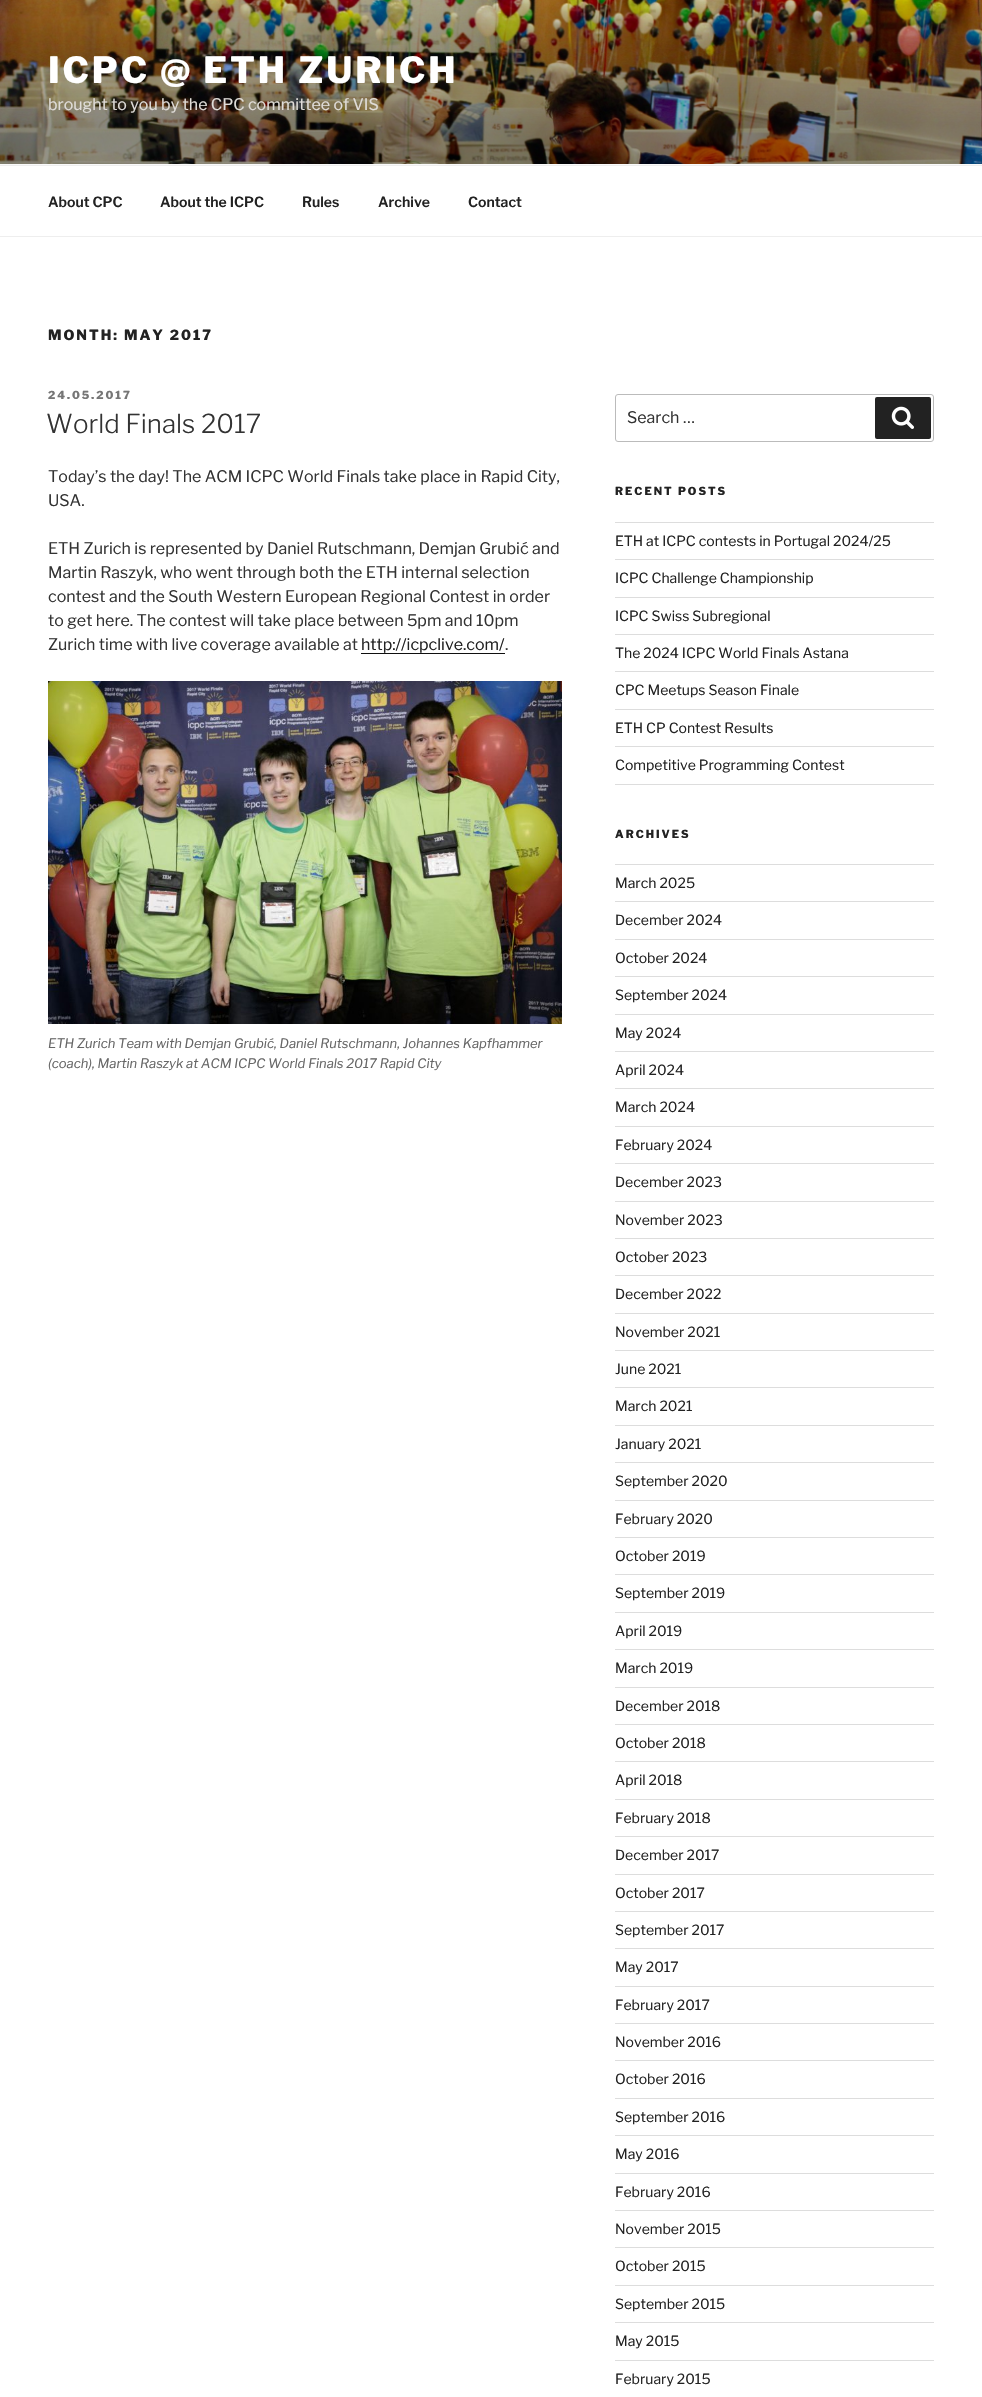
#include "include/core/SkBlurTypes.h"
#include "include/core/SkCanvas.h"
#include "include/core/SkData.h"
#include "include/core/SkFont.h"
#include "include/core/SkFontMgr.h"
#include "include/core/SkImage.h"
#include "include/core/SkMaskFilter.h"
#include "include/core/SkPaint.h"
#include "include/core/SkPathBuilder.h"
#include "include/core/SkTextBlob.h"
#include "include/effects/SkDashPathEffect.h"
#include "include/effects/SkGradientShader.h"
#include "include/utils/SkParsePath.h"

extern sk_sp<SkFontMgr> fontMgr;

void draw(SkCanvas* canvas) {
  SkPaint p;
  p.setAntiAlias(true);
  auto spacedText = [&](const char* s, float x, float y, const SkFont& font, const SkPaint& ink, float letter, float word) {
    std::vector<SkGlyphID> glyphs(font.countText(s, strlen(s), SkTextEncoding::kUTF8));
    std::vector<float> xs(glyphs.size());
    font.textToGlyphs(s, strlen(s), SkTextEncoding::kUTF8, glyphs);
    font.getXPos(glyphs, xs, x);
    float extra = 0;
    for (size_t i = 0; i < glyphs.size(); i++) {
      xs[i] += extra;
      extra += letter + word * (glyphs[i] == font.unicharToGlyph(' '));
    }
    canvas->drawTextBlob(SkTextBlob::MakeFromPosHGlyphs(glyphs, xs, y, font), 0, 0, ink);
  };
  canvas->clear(SK_ColorWHITE);
  p.setColor(SkColorSetRGB(250, 250, 250));
  canvas->drawRect(SkRect::MakeLTRB(0, 164, 982, 165), p);
  canvas->drawImageRect(SkImages::DeferredFromEncodedData(SkData::MakeFromFileName("images/1.png")), SkRect::MakeLTRB(0, 0, 982, 164), SkSamplingOptions());
  p.setColor(SkColorSetRGB(238, 238, 238));
  canvas->drawRect(SkRect::MakeLTRB(0, 165, 982, 166), p);
  canvas->drawRect(SkRect::MakeLTRB(0, 236, 982, 237), p);
  p.setColor(SkColorSetRGB(15, 15, 15));
  canvas->drawRect(SkRect::MakeLTRB(361, 653, 505, 654), p);
  canvas->drawImageRect(SkImages::DeferredFromEncodedData(SkData::MakeFromFileName("images/2.png")), SkRect::MakeLTRB(48, 681, 562, 1024), SkSamplingOptions());
  p.setStyle(SkPaint::kStroke_Style);
  p.setStrokeWidth(1);
  p.setColor(SkColorSetRGB(187, 187, 187));
  canvas->drawRoundRect(SkRect::MakeLTRB(615.5f, 394.5f, 933.5f, 441.5f), 2.5f, 2.5f, p);
  p.setStyle(SkPaint::kFill_Style);
  p.setColor(SkColorSetRGB(34, 34, 34));
  canvas->drawRoundRect(SkRect::MakeLTRB(875, 397, 931, 439), 2, 2, p);
  canvas->drawImageRect(SkImages::DeferredFromEncodedData(SkData::MakeFromFileName("images/3.png")), SkRect::MakeLTRB(891, 406, 914, 429), SkSamplingOptions());
  p.setColor(SkColorSetRGB(221, 221, 221));
  canvas->drawRect(SkRect::MakeLTRB(615, 522, 934, 523), p);
  canvas->drawRect(SkRect::MakeLTRB(615, 559, 934, 560), p);
  canvas->drawRect(SkRect::MakeLTRB(615, 597, 934, 598), p);
  canvas->drawRect(SkRect::MakeLTRB(615, 634, 934, 635), p);
  canvas->drawRect(SkRect::MakeLTRB(615, 671, 934, 672), p);
  canvas->drawRect(SkRect::MakeLTRB(615, 709, 934, 710), p);
  canvas->drawRect(SkRect::MakeLTRB(615, 746, 934, 747), p);
  canvas->drawRect(SkRect::MakeLTRB(615, 784, 934, 785), p);
  canvas->drawRect(SkRect::MakeLTRB(615, 864, 934, 865), p);
  canvas->drawRect(SkRect::MakeLTRB(615, 901, 934, 902), p);
  canvas->drawRect(SkRect::MakeLTRB(615, 939, 934, 940), p);
  canvas->drawRect(SkRect::MakeLTRB(615, 976, 934, 977), p);
  canvas->drawRect(SkRect::MakeLTRB(615, 1014, 934, 1015), p);
  canvas->drawRect(SkRect::MakeLTRB(615, 1051, 934, 1052), p);
  canvas->drawRect(SkRect::MakeLTRB(615, 1088, 934, 1089), p);
  canvas->drawRect(SkRect::MakeLTRB(615, 1126, 934, 1127), p);
  canvas->drawRect(SkRect::MakeLTRB(615, 1163, 934, 1164), p);
  canvas->drawRect(SkRect::MakeLTRB(615, 1201, 934, 1202), p);
  canvas->drawRect(SkRect::MakeLTRB(615, 1238, 934, 1239), p);
  canvas->drawRect(SkRect::MakeLTRB(615, 1275, 934, 1276), p);
  canvas->drawRect(SkRect::MakeLTRB(615, 1313, 934, 1314), p);
  canvas->drawRect(SkRect::MakeLTRB(615, 1350, 934, 1351), p);
  canvas->drawRect(SkRect::MakeLTRB(615, 1387, 934, 1388), p);
  canvas->drawRect(SkRect::MakeLTRB(615, 1425, 934, 1426), p);
  canvas->drawRect(SkRect::MakeLTRB(615, 1462, 934, 1463), p);
  canvas->drawRect(SkRect::MakeLTRB(615, 1500, 934, 1501), p);
  canvas->drawRect(SkRect::MakeLTRB(615, 1537, 934, 1538), p);
  canvas->drawRect(SkRect::MakeLTRB(615, 1574, 934, 1575), p);
  canvas->drawRect(SkRect::MakeLTRB(615, 1612, 934, 1613), p);
  canvas->drawRect(SkRect::MakeLTRB(615, 1649, 934, 1650), p);
  canvas->drawRect(SkRect::MakeLTRB(615, 1687, 934, 1688), p);
  canvas->drawRect(SkRect::MakeLTRB(615, 1724, 934, 1725), p);
  canvas->drawRect(SkRect::MakeLTRB(615, 1761, 934, 1762), p);
  canvas->drawRect(SkRect::MakeLTRB(615, 1799, 934, 1800), p);
  canvas->drawRect(SkRect::MakeLTRB(615, 1836, 934, 1837), p);
  canvas->drawRect(SkRect::MakeLTRB(615, 1874, 934, 1875), p);
  canvas->drawRect(SkRect::MakeLTRB(615, 1911, 934, 1912), p);
  canvas->drawRect(SkRect::MakeLTRB(615, 1948, 934, 1949), p);
  canvas->drawRect(SkRect::MakeLTRB(615, 1986, 934, 1987), p);
  canvas->drawRect(SkRect::MakeLTRB(615, 2023, 934, 2024), p);
  canvas->drawRect(SkRect::MakeLTRB(615, 2060, 934, 2061), p);
  canvas->drawRect(SkRect::MakeLTRB(615, 2098, 934, 2099), p);
  canvas->drawRect(SkRect::MakeLTRB(615, 2135, 934, 2136), p);
  canvas->drawRect(SkRect::MakeLTRB(615, 2173, 934, 2174), p);
  canvas->drawRect(SkRect::MakeLTRB(615, 2210, 934, 2211), p);
  canvas->drawRect(SkRect::MakeLTRB(615, 2247, 934, 2248), p);
  canvas->drawRect(SkRect::MakeLTRB(615, 2285, 934, 2286), p);
  canvas->drawRect(SkRect::MakeLTRB(615, 2322, 934, 2323), p);
  canvas->drawRect(SkRect::MakeLTRB(615, 2360, 934, 2361), p);
  SkFont font1(fontMgr->matchFamilyStyle("Libre Franklin", SkFontStyle(100, SkFontStyle::kNormal_Width, SkFontStyle::kUpright_Slant)), 36);
  font1.setSubpixel(true);
  p.setColor(SK_ColorWHITE);
  spacedText("ICPC @ ETH ZURICH", 48, 83, font1, p, 2.9f, 0);
  SkFont font2(fontMgr->matchFamilyStyle("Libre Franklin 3", SkFontStyle(100, SkFontStyle::kNormal_Width, SkFontStyle::kUpright_Slant)), 16);
  font2.setSubpixel(true);
  p.setColor(SkColorSetRGB(224, 221, 217));
  canvas->drawString("brought to you by the CPC committee of VIS", 48, 110, font2, p);
  SkFont font3(fontMgr->matchFamilyStyle("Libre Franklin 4", SkFontStyle(100, SkFontStyle::kNormal_Width, SkFontStyle::kUpright_Slant)), 14);
  font3.setSubpixel(true);
  p.setColor(SkColorSetRGB(34, 34, 34));
  canvas->drawString("About CPC", 48, 207, font3, p);
  canvas->drawString("About the ICPC", 160, 207, font3, p);
  canvas->drawString("Rules", 302, 207, font3, p);
  canvas->drawString("Archive", 378, 207, font3, p);
  canvas->drawString("Contact", 468, 207, font3, p);
  SkFont font4(fontMgr->matchFamilyStyle("Libre Franklin", SkFontStyle(100, SkFontStyle::kNormal_Width, SkFontStyle::kUpright_Slant)), 14);
  font4.setSubpixel(true);
  spacedText("MONTH: MAY 2017", 48, 340, font4, p, 2, 0);
  SkFont font5(fontMgr->matchFamilyStyle("Libre Franklin", SkFontStyle(100, SkFontStyle::kNormal_Width, SkFontStyle::kUpright_Slant)), 11);
  font5.setSubpixel(true);
  p.setColor(SkColorSetRGB(118, 118, 118));
  spacedText("24.05.2017", 48, 399, font5, p, 2, 0);
  SkFont font6(fontMgr->matchFamilyStyle("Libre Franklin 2", SkFontStyle(100, SkFontStyle::kNormal_Width, SkFontStyle::kUpright_Slant)), 26);
  font6.setSubpixel(true);
  p.setColor(SkColorSetRGB(51, 51, 51));
  canvas->drawString("World Finals 2017", 46, 433, font6, p);
  canvas->drawString("Today’s the day! The ACM ICPC World Finals take place in Rapid City,", 48, 482, font2, p);
  canvas->drawString("USA.", 48, 506, font2, p);
  canvas->drawString("ETH Zurich is represented by Daniel Rutschmann, Demjan Grubić and", 48, 554, font2, p);
  canvas->drawString("Martin Raszyk, who went through both the ETH internal selection", 48, 578, font2, p);
  canvas->drawString("contest and the South Western European Regional Contest in order", 48, 602, font2, p);
  canvas->drawString("to get here. The contest will take place between 5pm and 10pm", 48, 626, font2, p);
  canvas->drawString("Zurich time with live coverage available at", 48, 650, font2, p);
  p.setColor(SkColorSetRGB(34, 34, 34));
  canvas->drawString("http://icpclive.com/", 361, 650, font2, p);
  p.setColor(SkColorSetRGB(51, 51, 51));
  canvas->drawString(".", 505, 650, font2, p);
  SkFont font7(fontMgr->matchFamilyStyle("Libre Franklin", SkFontStyle(100, SkFontStyle::kNormal_Width, SkFontStyle::kItalic_Slant)), 13);
  font7.setSubpixel(true);
  p.setColor(SkColorSetRGB(102, 102, 102));
  canvas->drawString("ETH Zurich Team with Demjan Grubić, Daniel Rutschmann, Johannes Kapfhammer", 48, 1048, font7, p);
  canvas->drawString("(coach), Martin Raszyk at ACM ICPC World Finals 2017 Rapid City", 48, 1068, font7, p);
  p.setColor(SkColorSetRGB(51, 51, 51));
  canvas->drawString("Search …", 627, 423, font2, p);
  p.setColor(SkColorSetRGB(34, 34, 34));
  spacedText("RECENT POSTS", 615, 495, font5, p, 2, 0);
  SkFont font8(fontMgr->matchFamilyStyle("Libre Franklin 3", SkFontStyle(100, SkFontStyle::kNormal_Width, SkFontStyle::kUpright_Slant)), 14);
  font8.setSubpixel(true);
  canvas->drawString("ETH at ICPC contests in Portugal 2024/25", 615, 546, font8, p);
  canvas->drawString("ICPC Challenge Championship", 615, 583, font8, p);
  canvas->drawString("ICPC Swiss Subregional", 615, 621, font8, p);
  canvas->drawString("The 2024 ICPC World Finals Astana", 615, 658, font8, p);
  canvas->drawString("CPC Meetups Season Finale", 615, 695, font8, p);
  canvas->drawString("ETH CP Contest Results", 615, 733, font8, p);
  canvas->drawString("Competitive Programming Contest", 615, 770, font8, p);
  spacedText("ARCHIVES", 615, 838, font5, p, 2, 0);
  canvas->drawString("March 2025", 615, 888, font8, p);
  canvas->drawString("December 2024", 615, 925, font8, p);
  canvas->drawString("October 2024", 615, 963, font8, p);
  canvas->drawString("September 2024", 615, 1000, font8, p);
  canvas->drawString("May 2024", 615, 1038, font8, p);
  canvas->drawString("April 2024", 615, 1075, font8, p);
  canvas->drawString("March 2024", 615, 1112, font8, p);
  canvas->drawString("February 2024", 615, 1150, font8, p);
  canvas->drawString("December 2023", 615, 1187, font8, p);
  canvas->drawString("November 2023", 615, 1225, font8, p);
  canvas->drawString("October 2023", 615, 1262, font8, p);
  canvas->drawString("December 2022", 615, 1299, font8, p);
  canvas->drawString("November 2021", 615, 1337, font8, p);
  canvas->drawString("June 2021", 615, 1374, font8, p);
  canvas->drawString("March 2021", 615, 1411, font8, p);
  canvas->drawString("January 2021", 615, 1449, font8, p);
  canvas->drawString("September 2020", 615, 1486, font8, p);
  canvas->drawString("February 2020", 615, 1524, font8, p);
  canvas->drawString("October 2019", 615, 1561, font8, p);
  canvas->drawString("September 2019", 615, 1598, font8, p);
  canvas->drawString("April 2019", 615, 1636, font8, p);
  canvas->drawString("March 2019", 615, 1673, font8, p);
  canvas->drawString("December 2018", 615, 1711, font8, p);
  canvas->drawString("October 2018", 615, 1748, font8, p);
  canvas->drawString("April 2018", 615, 1785, font8, p);
  canvas->drawString("February 2018", 615, 1823, font8, p);
  canvas->drawString("December 2017", 615, 1860, font8, p);
  canvas->drawString("October 2017", 615, 1898, font8, p);
  canvas->drawString("September 2017", 615, 1935, font8, p);
  canvas->drawString("May 2017", 615, 1972, font8, p);
  canvas->drawString("February 2017", 615, 2010, font8, p);
  canvas->drawString("November 2016", 615, 2047, font8, p);
  canvas->drawString("October 2016", 615, 2084, font8, p);
  canvas->drawString("September 2016", 615, 2122, font8, p);
  canvas->drawString("May 2016", 615, 2159, font8, p);
  canvas->drawString("February 2016", 615, 2197, font8, p);
  canvas->drawString("November 2015", 615, 2234, font8, p);
  canvas->drawString("October 2015", 615, 2271, font8, p);
  canvas->drawString("September 2015", 615, 2309, font8, p);
  canvas->drawString("May 2015", 615, 2346, font8, p);
  canvas->drawString("February 2015", 615, 2384, font8, p);
}
